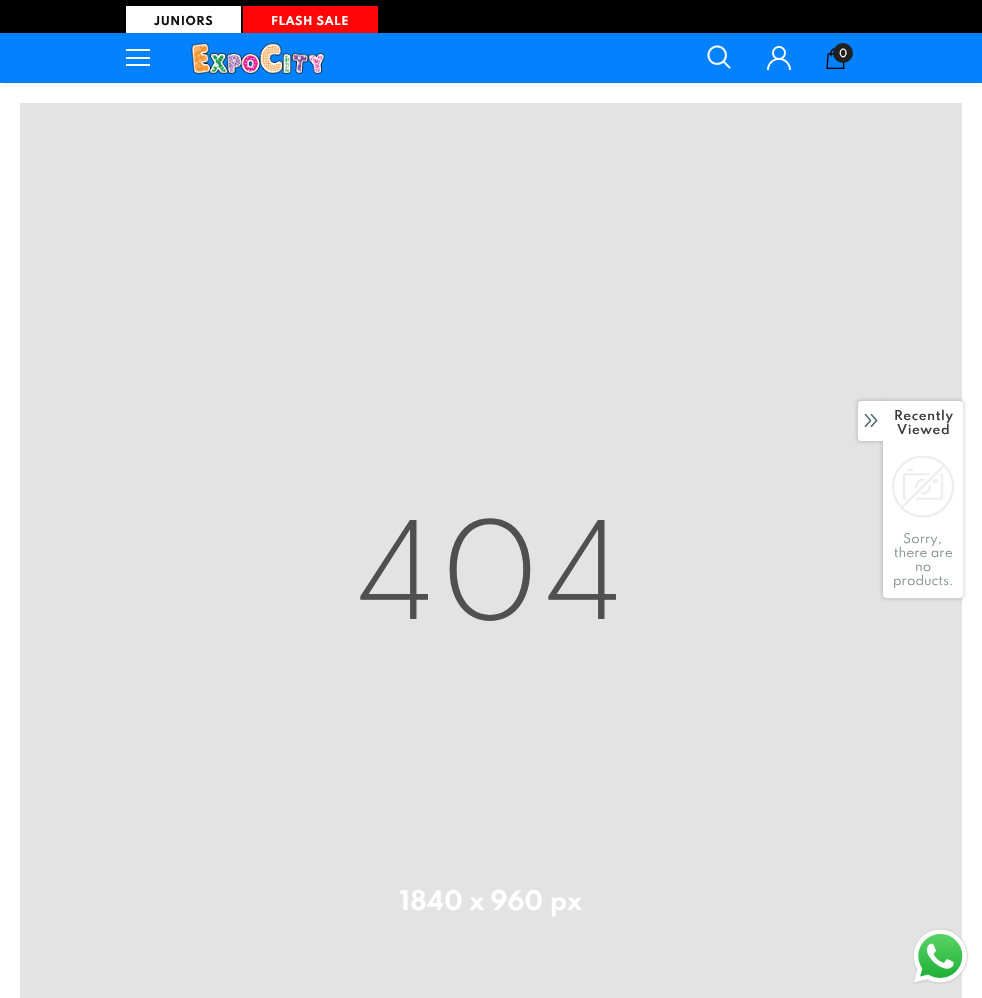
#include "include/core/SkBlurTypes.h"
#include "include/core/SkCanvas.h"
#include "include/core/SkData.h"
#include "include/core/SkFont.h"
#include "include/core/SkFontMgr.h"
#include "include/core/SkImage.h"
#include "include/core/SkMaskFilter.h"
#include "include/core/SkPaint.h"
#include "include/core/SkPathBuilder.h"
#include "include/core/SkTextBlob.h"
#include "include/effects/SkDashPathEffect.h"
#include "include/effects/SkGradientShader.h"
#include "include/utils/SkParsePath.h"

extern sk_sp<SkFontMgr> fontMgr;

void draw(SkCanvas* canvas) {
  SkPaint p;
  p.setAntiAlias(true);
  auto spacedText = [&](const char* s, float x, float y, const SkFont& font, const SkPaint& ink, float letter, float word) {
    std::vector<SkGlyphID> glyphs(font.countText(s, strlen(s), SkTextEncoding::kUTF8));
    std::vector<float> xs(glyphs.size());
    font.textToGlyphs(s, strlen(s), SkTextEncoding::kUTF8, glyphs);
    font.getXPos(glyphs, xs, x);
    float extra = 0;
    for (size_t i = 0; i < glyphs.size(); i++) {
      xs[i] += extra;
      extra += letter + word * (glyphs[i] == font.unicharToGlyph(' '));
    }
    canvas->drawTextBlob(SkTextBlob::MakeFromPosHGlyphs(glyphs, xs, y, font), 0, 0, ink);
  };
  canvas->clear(SK_ColorWHITE);
  p.setColor(SK_ColorBLACK);
  canvas->drawRect(SkRect::MakeLTRB(0, 0, 982, 33), p);
  p.setColor(SK_ColorWHITE);
  canvas->drawRect(SkRect::MakeLTRB(126, 6, 241, 33), p);
  p.setColor(SkColorSetRGB(255, 5, 5));
  canvas->drawRect(SkRect::MakeLTRB(243, 6, 378, 33), p);
  p.setColor(SkColorSetARGB(31, 0, 0, 0));
  p.setMaskFilter(SkMaskFilter::MakeBlur(kNormal_SkBlurStyle, 1.5f));
  canvas->drawRect(SkRect::MakeLTRB(3, 39, 979, 83), p);
  p.setMaskFilter(nullptr);
  p.setColor(SkColorSetRGB(2, 130, 255));
  canvas->drawRect(SkRect::MakeLTRB(0, 33, 982, 83), p);
  p.setColor(SK_ColorWHITE);
  canvas->drawRect(SkRect::MakeLTRB(126, 49, 150, 51), p);
  canvas->drawRect(SkRect::MakeLTRB(126, 57, 150, 59), p);
  canvas->drawRect(SkRect::MakeLTRB(126, 64, 150, 66), p);
  canvas->drawImageRect(SkImages::DeferredFromEncodedData(SkData::MakeFromFileName("images/1.png")), SkRect::MakeLTRB(191, 42, 325, 74), SkSamplingOptions());
  canvas->drawImageRect(SkImages::DeferredFromEncodedData(SkData::MakeFromFileName("images/2.png")), SkRect::MakeLTRB(707, 45, 731, 69), SkSamplingOptions());
  canvas->drawImageRect(SkImages::DeferredFromEncodedData(SkData::MakeFromFileName("images/3.png")), SkRect::MakeLTRB(767, 46, 791, 70), SkSamplingOptions());
  canvas->drawImageRect(SkImages::DeferredFromEncodedData(SkData::MakeFromFileName("images/4.png")), SkRect::MakeLTRB(826, 48, 845, 69), SkSamplingOptions());
  p.setColor(SkColorSetRGB(32, 32, 32));
  canvas->drawCircle(843, 53, 10, p);
  p.setColor(SkColorSetRGB(227, 227, 227));
  canvas->drawRect(SkRect::MakeLTRB(20, 103, 962, 998), p);
  p.setColor(SkColorSetARGB(26, 0, 0, 0));
  p.setMaskFilter(SkMaskFilter::MakeBlur(kNormal_SkBlurStyle, 1.5f));
  canvas->drawRoundRect(SkRect::MakeLTRB(881, 399, 965, 600), 5, 5, p);
  p.setMaskFilter(nullptr);
  p.setColor(SK_ColorWHITE);
  canvas->drawPath(SkPathBuilder().moveTo(883, 401).lineTo(960, 401).cubicTo(961.5f, 401, 963, 402.5f, 963, 404).lineTo(963, 595).cubicTo(963, 596.5f, 961.5f, 598, 960, 598).lineTo(886, 598).cubicTo(884.5f, 598, 883, 596.5f, 883, 595).close().detach(), p);
  p.setColor(SkColorSetARGB(26, 0, 0, 0));
  p.setMaskFilter(SkMaskFilter::MakeBlur(kNormal_SkBlurStyle, 1.5f));
  canvas->drawRoundRect(SkRect::MakeLTRB(856, 399, 886, 443), 5, 5, p);
  p.setMaskFilter(nullptr);
  p.setColor(SK_ColorWHITE);
  canvas->drawPath(SkPathBuilder().moveTo(861, 401).lineTo(884, 401).lineTo(884, 441).lineTo(861, 441).cubicTo(859.5f, 441, 858, 439.5f, 858, 438).lineTo(858, 404).cubicTo(858, 402.5f, 859.5f, 401, 861, 401).close().detach(), p);
  canvas->drawImageRect(SkImages::DeferredFromEncodedData(SkData::MakeFromFileName("images/5.png")), SkRect::MakeLTRB(864, 414, 878, 428), SkSamplingOptions());
  canvas->drawRect(SkRect::MakeLTRB(883, 401, 888, 444), p);
  canvas->drawImageRect(SkImages::DeferredFromEncodedData(SkData::MakeFromFileName("images/6.png")), SkRect::MakeLTRB(892, 456, 954, 518), SkSamplingOptions());
  canvas->drawImageRect(SkImages::DeferredFromEncodedData(SkData::MakeFromFileName("images/7.png")), SkRect::MakeLTRB(913, 928, 969, 984), SkSamplingOptions());
  SkFont font1(fontMgr->matchFamilyStyle("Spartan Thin", SkFontStyle::Bold()), 11);
  font1.setSubpixel(true);
  p.setColor(SkColorSetRGB(15, 15, 15));
  spacedText("JUNIORS", 154, 25, font1, p, 0.5f, 0);
  p.setColor(SK_ColorWHITE);
  spacedText("FLASH SALE", 271, 25, font1, p, 0.5f, 0);
  SkFont font2(fontMgr->matchFamilyStyle("Spartan Thin", SkFontStyle(500, SkFontStyle::kNormal_Width, SkFontStyle::kUpright_Slant)), 10);
  font2.setSubpixel(true);
  canvas->drawString("0", 839, 57, font2, p);
  SkFont font3(fontMgr->matchFamilyStyle("Spartan Thin", SkFontStyle(600, SkFontStyle::kNormal_Width, SkFontStyle::kUpright_Slant)), 12);
  font3.setSubpixel(true);
  p.setColor(SkColorSetRGB(60, 60, 60));
  spacedText("Recently", 894, 420, font3, p, 0.5f, 0);
  spacedText("Viewed", 897, 434, font3, p, 0.5f, 0);
  SkFont font4(fontMgr->matchFamilyStyle("Spartan Thin", SkFontStyle::Normal()), 12);
  font4.setSubpixel(true);
  p.setColor(SkColorSetRGB(125, 139, 142));
  canvas->drawString("Sorry,", 903, 543, font4, p);
  canvas->drawString("there are", 894, 557, font4, p);
  canvas->drawString("no", 915, 571, font4, p);
  canvas->drawString("products.", 893, 585, font4, p);
  SkFont font5(fontMgr->matchFamilyStyle("Spartan Thin", SkFontStyle(300, SkFontStyle::kNormal_Width, SkFontStyle::kUpright_Slant)), 120);
  font5.setSubpixel(true);
  p.setColor(SkColorSetRGB(80, 80, 80));
  spacedText("404", 356, 619, font5, p, 2.5f, 0);
  SkFont font6(fontMgr->matchFamilyStyle("Spartan Thin", SkFontStyle::Bold()), 24);
  font6.setSubpixel(true);
  p.setColor(SK_ColorWHITE);
  canvas->drawString("1840 x 960 px", 400, 910, font6, p);
}
